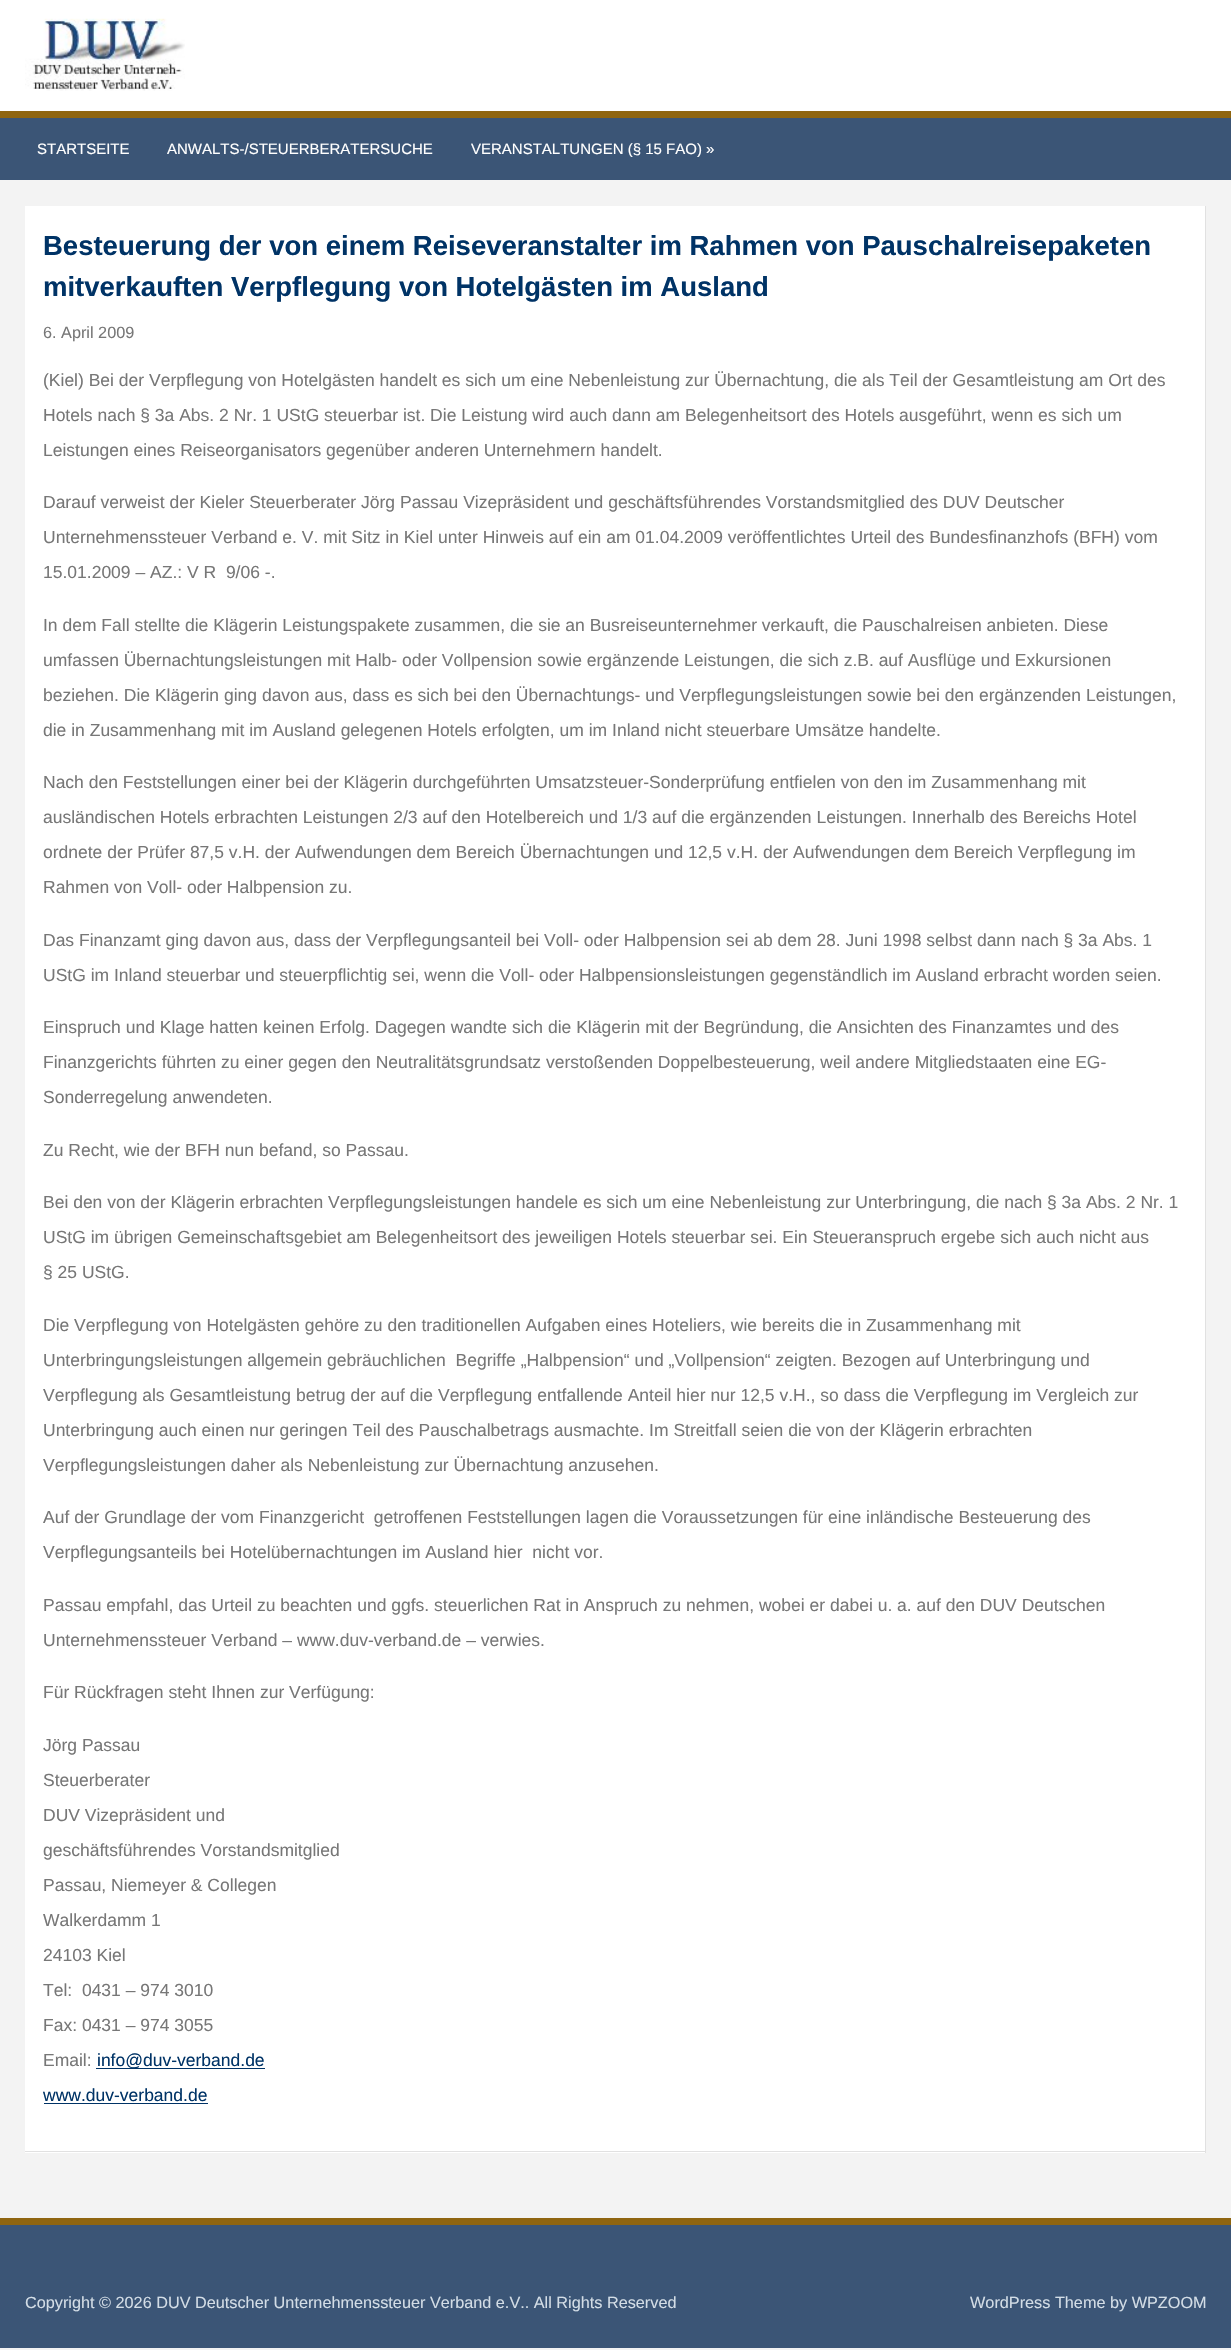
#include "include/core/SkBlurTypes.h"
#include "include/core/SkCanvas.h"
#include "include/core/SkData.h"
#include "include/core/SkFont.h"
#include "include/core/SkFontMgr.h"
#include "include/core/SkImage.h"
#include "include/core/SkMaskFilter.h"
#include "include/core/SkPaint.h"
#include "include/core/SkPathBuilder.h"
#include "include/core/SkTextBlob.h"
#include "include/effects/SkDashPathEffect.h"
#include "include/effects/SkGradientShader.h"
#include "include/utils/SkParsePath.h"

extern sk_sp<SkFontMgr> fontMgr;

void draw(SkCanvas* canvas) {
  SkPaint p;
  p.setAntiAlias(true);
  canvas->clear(SkColorSetRGB(243, 243, 243));
  p.setColor(SK_ColorWHITE);
  canvas->drawRect(SkRect::MakeLTRB(0, 0, 1231, 111), p);
  canvas->drawImageRect(SkImages::DeferredFromEncodedData(SkData::MakeFromFileName("images/1.png")), SkRect::MakeLTRB(25, 18, 185, 91), SkSamplingOptions());
  p.setColor(SkColorSetRGB(59, 85, 118));
  canvas->drawRect(SkRect::MakeLTRB(0, 118, 1231, 180), p);
  p.setColor(SkColorSetRGB(143, 101, 16));
  canvas->drawRect(SkRect::MakeLTRB(0, 111, 1231, 118), p);
  p.setColor(SK_ColorWHITE);
  canvas->drawRect(SkRect::MakeLTRB(25, 206, 1205, 2153), p);
  p.setColor(SkColorSetRGB(225, 225, 225));
  canvas->drawRect(SkRect::MakeLTRB(1205, 206, 1206, 2153), p);
  canvas->drawRect(SkRect::MakeLTRB(25, 2151, 1206, 2152), p);
  p.setColor(SkColorSetRGB(0, 51, 102));
  canvas->drawRect(SkRect::MakeLTRB(96, 2068, 265, 2069), p);
  canvas->drawRect(SkRect::MakeLTRB(44, 2103, 208, 2104), p);
  p.setColor(SkColorSetRGB(59, 85, 118));
  canvas->drawRect(SkRect::MakeLTRB(0, 2225, 1231, 2348), p);
  p.setColor(SkColorSetRGB(143, 101, 16));
  canvas->drawRect(SkRect::MakeLTRB(0, 2218, 1231, 2225), p);
  SkFont font1(fontMgr->matchFamilyStyle("Liberation Sans", SkFontStyle::Normal()), 15);
  font1.setSubpixel(true);
  p.setColor(SK_ColorWHITE);
  canvas->drawString("STARTSEITE", 37, 154, font1, p);
  canvas->drawString("ANWALTS-/STEUERBERATERSUCHE", 167, 154, font1, p);
  canvas->drawString("VERANSTALTUNGEN (§ 15 FAO) »", 471, 154, font1, p);
  SkFont font2(fontMgr->matchFamilyStyle("Liberation Sans", SkFontStyle::Bold()), 27.5f);
  font2.setSubpixel(true);
  p.setColor(SkColorSetRGB(0, 51, 102));
  canvas->drawString("Besteuerung der von einem Reiseveranstalter im Rahmen von Pauschalreisepaketen", 43, 255, font2, p);
  canvas->drawString("mitverkauften Verpflegung von Hotelgästen im Ausland", 43, 296, font2, p);
  SkFont font3(fontMgr->matchFamilyStyle("Liberation Sans", SkFontStyle::Normal()), 16.25f);
  font3.setSubpixel(true);
  p.setColor(SkColorSetRGB(119, 119, 119));
  canvas->drawString("6. April 2009", 43, 338, font3, p);
  SkFont font4(fontMgr->matchFamilyStyle("Liberation Sans", SkFontStyle::Normal()), 17.5f);
  font4.setSubpixel(true);
  canvas->drawString("(Kiel) Bei der Verpflegung von Hotelgästen handelt es sich um eine Nebenleistung zur Übernachtung, die als Teil der Gesamtleistung am Ort des", 43, 386, font4, p);
  canvas->drawString("Hotels nach § 3a Abs. 2 Nr. 1 UStG steuerbar ist. Die Leistung wird auch dann am Belegenheitsort des Hotels ausgeführt, wenn es sich um", 43, 421, font4, p);
  canvas->drawString("Leistungen eines Reiseorganisators gegenüber anderen Unternehmern handelt.", 43, 456, font4, p);
  canvas->drawString("Darauf verweist der Kieler Steuerberater Jörg Passau Vizepräsident und geschäftsführendes Vorstandsmitglied des DUV Deutscher", 43, 508, font4, p);
  canvas->drawString("Unternehmenssteuer Verband e. V. mit Sitz in Kiel unter Hinweis auf ein am 01.04.2009 veröffentlichtes Urteil des Bundesfinanzhofs (BFH) vom", 43, 543, font4, p);
  canvas->drawString("15.01.2009 – AZ.: V R  9/06 -.", 43, 578, font4, p);
  canvas->drawString("In dem Fall stellte die Klägerin Leistungspakete zusammen, die sie an Busreiseunternehmer verkauft, die Pauschalreisen anbieten. Diese", 43, 631, font4, p);
  canvas->drawString("umfassen Übernachtungsleistungen mit Halb- oder Vollpension sowie ergänzende Leistungen, die sich z.B. auf Ausflüge und Exkursionen", 43, 666, font4, p);
  canvas->drawString("beziehen. Die Klägerin ging davon aus, dass es sich bei den Übernachtungs- und Verpflegungsleistungen sowie bei den ergänzenden Leistungen,", 43, 701, font4, p);
  canvas->drawString("die in Zusammenhang mit im Ausland gelegenen Hotels erfolgten, um im Inland nicht steuerbare Umsätze handelte.", 43, 736, font4, p);
  canvas->drawString("Nach den Feststellungen einer bei der Klägerin durchgeführten Umsatzsteuer-Sonderprüfung entfielen von den im Zusammenhang mit", 43, 788, font4, p);
  canvas->drawString("ausländischen Hotels erbrachten Leistungen 2/3 auf den Hotelbereich und 1/3 auf die ergänzenden Leistungen. Innerhalb des Bereichs Hotel", 43, 823, font4, p);
  canvas->drawString("ordnete der Prüfer 87,5 v.H. der Aufwendungen dem Bereich Übernachtungen und 12,5 v.H. der Aufwendungen dem Bereich Verpflegung im", 43, 858, font4, p);
  canvas->drawString("Rahmen von Voll- oder Halbpension zu.", 43, 893, font4, p);
  canvas->drawString("Das Finanzamt ging davon aus, dass der Verpflegungsanteil bei Voll- oder Halbpension sei ab dem 28. Juni 1998 selbst dann nach § 3a Abs. 1", 43, 946, font4, p);
  canvas->drawString("UStG im Inland steuerbar und steuerpflichtig sei, wenn die Voll- oder Halbpensionsleistungen gegenständlich im Ausland erbracht worden seien.", 43, 981, font4, p);
  canvas->drawString("Einspruch und Klage hatten keinen Erfolg. Dagegen wandte sich die Klägerin mit der Begründung, die Ansichten des Finanzamtes und des", 43, 1033, font4, p);
  canvas->drawString("Finanzgerichts führten zu einer gegen den Neutralitätsgrundsatz verstoßenden Doppelbesteuerung, weil andere Mitgliedstaaten eine EG-", 43, 1068, font4, p);
  canvas->drawString("Sonderregelung anwendeten.", 43, 1103, font4, p);
  canvas->drawString("Zu Recht, wie der BFH nun befand, so Passau.", 43, 1156, font4, p);
  canvas->drawString("Bei den von der Klägerin erbrachten Verpflegungsleistungen handele es sich um eine Nebenleistung zur Unterbringung, die nach § 3a Abs. 2 Nr. 1", 43, 1208, font4, p);
  canvas->drawString("UStG im übrigen Gemeinschaftsgebiet am Belegenheitsort des jeweiligen Hotels steuerbar sei. Ein Steueranspruch ergebe sich auch nicht aus", 43, 1243, font4, p);
  canvas->drawString("§ 25 UStG.", 43, 1278, font4, p);
  canvas->drawString("Die Verpflegung von Hotelgästen gehöre zu den traditionellen Aufgaben eines Hoteliers, wie bereits die in Zusammenhang mit", 43, 1331, font4, p);
  canvas->drawString("Unterbringungsleistungen allgemein gebräuchlichen  Begriffe „Halbpension“ und „Vollpension“ zeigten. Bezogen auf Unterbringung und", 43, 1366, font4, p);
  canvas->drawString("Verpflegung als Gesamtleistung betrug der auf die Verpflegung entfallende Anteil hier nur 12,5 v.H., so dass die Verpflegung im Vergleich zur", 43, 1401, font4, p);
  canvas->drawString("Unterbringung auch einen nur geringen Teil des Pauschalbetrags ausmachte. Im Streitfall seien die von der Klägerin erbrachten", 43, 1436, font4, p);
  canvas->drawString("Verpflegungsleistungen daher als Nebenleistung zur Übernachtung anzusehen.", 43, 1471, font4, p);
  canvas->drawString("Auf der Grundlage der vom Finanzgericht  getroffenen Feststellungen lagen die Voraussetzungen für eine inländische Besteuerung des", 43, 1523, font4, p);
  canvas->drawString("Verpflegungsanteils bei Hotelübernachtungen im Ausland hier  nicht vor.", 43, 1558, font4, p);
  canvas->drawString("Passau empfahl, das Urteil zu beachten und ggfs. steuerlichen Rat in Anspruch zu nehmen, wobei er dabei u. a. auf den DUV Deutschen", 43, 1611, font4, p);
  canvas->drawString("Unternehmenssteuer Verband – www.duv-verband.de – verwies.", 43, 1646, font4, p);
  canvas->drawString("Für Rückfragen steht Ihnen zur Verfügung:", 43, 1698, font4, p);
  canvas->drawString("Jörg Passau", 43, 1751, font4, p);
  canvas->drawString("Steuerberater", 43, 1786, font4, p);
  canvas->drawString("DUV Vizepräsident und", 43, 1821, font4, p);
  canvas->drawString("geschäftsführendes Vorstandsmitglied", 43, 1856, font4, p);
  canvas->drawString("Passau, Niemeyer & Collegen", 43, 1891, font4, p);
  canvas->drawString("Walkerdamm 1", 43, 1926, font4, p);
  canvas->drawString("24103 Kiel", 43, 1961, font4, p);
  canvas->drawString("Tel:  0431 – 974 3010", 43, 1996, font4, p);
  canvas->drawString("Fax: 0431 – 974 3055", 43, 2031, font4, p);
  canvas->drawString("Email:", 43, 2066, font4, p);
  p.setColor(SkColorSetRGB(0, 51, 102));
  canvas->drawString("info@duv-verband.de", 97, 2066, font4, p);
  canvas->drawString("www.duv-verband.de", 43, 2101, font4, p);
  p.setColor(SkColorSetRGB(211, 221, 230));
  canvas->drawString("Copyright © 2026 DUV Deutscher Unternehmenssteuer Verband e.V.. All Rights Reserved", 25, 2308, font3, p);
  canvas->drawString("WordPress Theme by WPZOOM", 970, 2308, font3, p);
}
